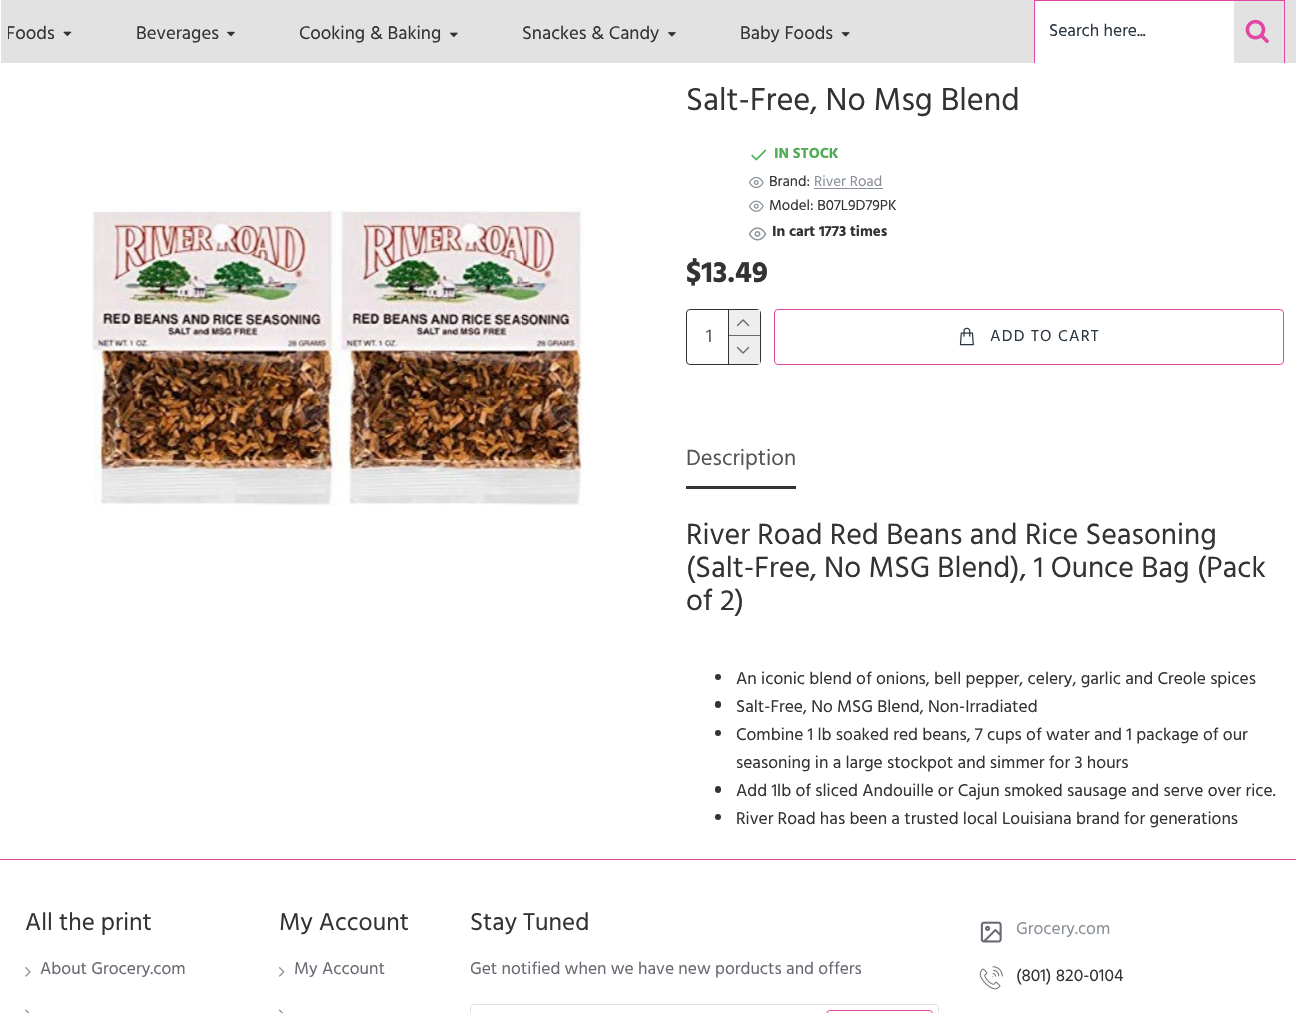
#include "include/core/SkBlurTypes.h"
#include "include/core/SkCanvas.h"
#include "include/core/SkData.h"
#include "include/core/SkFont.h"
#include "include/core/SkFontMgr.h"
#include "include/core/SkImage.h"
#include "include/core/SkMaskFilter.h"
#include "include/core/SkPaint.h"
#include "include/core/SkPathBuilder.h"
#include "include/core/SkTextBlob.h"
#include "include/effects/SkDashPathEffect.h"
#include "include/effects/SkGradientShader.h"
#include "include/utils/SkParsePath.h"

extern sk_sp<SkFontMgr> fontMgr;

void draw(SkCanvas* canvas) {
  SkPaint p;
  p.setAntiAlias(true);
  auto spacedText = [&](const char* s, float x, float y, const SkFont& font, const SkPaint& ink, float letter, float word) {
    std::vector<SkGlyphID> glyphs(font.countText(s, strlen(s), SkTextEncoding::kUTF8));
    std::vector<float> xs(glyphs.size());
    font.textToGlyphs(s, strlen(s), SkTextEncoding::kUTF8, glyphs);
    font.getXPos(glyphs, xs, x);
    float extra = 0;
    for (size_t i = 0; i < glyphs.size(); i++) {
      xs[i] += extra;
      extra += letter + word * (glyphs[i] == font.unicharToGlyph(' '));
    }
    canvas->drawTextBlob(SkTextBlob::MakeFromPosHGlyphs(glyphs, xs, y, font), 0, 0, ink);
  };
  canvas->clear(SK_ColorWHITE);
  p.setColor(SkColorSetRGB(226, 226, 226));
  canvas->drawRect(SkRect::MakeLTRB(1, 0, 1296, 63), p);
  canvas->drawImageRect(SkImages::DeferredFromEncodedData(SkData::MakeFromFileName("images/1.png")), SkRect::MakeLTRB(63, 31, 72, 37), SkSamplingOptions());
  canvas->drawImageRect(SkImages::DeferredFromEncodedData(SkData::MakeFromFileName("images/2.png")), SkRect::MakeLTRB(227, 31, 235, 37), SkSamplingOptions());
  canvas->drawImageRect(SkImages::DeferredFromEncodedData(SkData::MakeFromFileName("images/3.png")), SkRect::MakeLTRB(449, 32, 458, 38), SkSamplingOptions());
  canvas->drawImageRect(SkImages::DeferredFromEncodedData(SkData::MakeFromFileName("images/4.png")), SkRect::MakeLTRB(668, 32, 676, 37), SkSamplingOptions());
  canvas->drawImageRect(SkImages::DeferredFromEncodedData(SkData::MakeFromFileName("images/5.png")), SkRect::MakeLTRB(841, 32, 850, 37), SkSamplingOptions());
  p.setColor(SkColorSetRGB(227, 69, 163));
  canvas->drawRect(SkRect::MakeLTRB(1034, 0, 1285, 1), p);
  canvas->drawRect(SkRect::MakeLTRB(1284, 0, 1285, 63), p);
  canvas->drawRect(SkRect::MakeLTRB(1034, 0, 1035, 63), p);
  p.setColor(SK_ColorWHITE);
  canvas->drawRect(SkRect::MakeLTRB(1035, 1, 1234, 63), p);
  canvas->drawImageRect(SkImages::DeferredFromEncodedData(SkData::MakeFromFileName("images/6.png")), SkRect::MakeLTRB(1245, 19, 1269, 43), SkSamplingOptions());
  canvas->drawImageRect(SkImages::DeferredFromEncodedData(SkData::MakeFromFileName("images/7.png")), SkRect::MakeLTRB(92, 208, 584, 506), SkSamplingOptions());
  canvas->drawImageRect(SkImages::DeferredFromEncodedData(SkData::MakeFromFileName("images/8.png")), SkRect::MakeLTRB(751, 149, 767, 161), SkSamplingOptions());
  canvas->drawImageRect(SkImages::DeferredFromEncodedData(SkData::MakeFromFileName("images/9.png")), SkRect::MakeLTRB(749, 176, 764, 189), SkSamplingOptions());
  p.setColor(SkColorSetRGB(139, 145, 152));
  canvas->drawRect(SkRect::MakeLTRB(814, 188, 883, 189), p);
  canvas->drawImageRect(SkImages::DeferredFromEncodedData(SkData::MakeFromFileName("images/10.png")), SkRect::MakeLTRB(749, 200, 764, 212), SkSamplingOptions());
  canvas->drawImageRect(SkImages::DeferredFromEncodedData(SkData::MakeFromFileName("images/11.png")), SkRect::MakeLTRB(748, 227, 767, 241), SkSamplingOptions());
  p.setStyle(SkPaint::kStroke_Style);
  p.setStrokeWidth(1);
  p.setColor(SkColorSetRGB(51, 51, 51));
  canvas->drawRoundRect(SkRect::MakeLTRB(686.5f, 309.5f, 760.5f, 364.5f), 3.5f, 3.5f, p);
  p.setStyle(SkPaint::kFill_Style);
  p.setColor(SK_ColorWHITE);
  canvas->drawRoundRect(SkRect::MakeLTRB(688, 310, 760, 364), 4, 4, p);
  p.setColor(SkColorSetRGB(51, 51, 51));
  canvas->drawRect(SkRect::MakeLTRB(728, 310, 729, 364), p);
  p.setColor(SkColorSetRGB(238, 238, 238));
  canvas->drawRect(SkRect::MakeLTRB(729, 310, 760, 335), p);
  p.setColor(SkColorSetRGB(105, 105, 115));
  canvas->drawRect(SkRect::MakeLTRB(729, 335, 760, 336), p);
  canvas->drawImageRect(SkImages::DeferredFromEncodedData(SkData::MakeFromFileName("images/12.png")), SkRect::MakeLTRB(736, 319, 750, 327), SkSamplingOptions());
  p.setColor(SkColorSetRGB(238, 238, 238));
  canvas->drawRect(SkRect::MakeLTRB(729, 336, 760, 364), p);
  canvas->drawImageRect(SkImages::DeferredFromEncodedData(SkData::MakeFromFileName("images/13.png")), SkRect::MakeLTRB(736, 346, 750, 354), SkSamplingOptions());
  p.setStyle(SkPaint::kStroke_Style);
  p.setColor(SkColorSetRGB(227, 69, 163));
  canvas->drawRoundRect(SkRect::MakeLTRB(774.5f, 309.5f, 1283.5f, 364.5f), 3.5f, 3.5f, p);
  canvas->drawImageRect(SkImages::DeferredFromEncodedData(SkData::MakeFromFileName("images/14.png")), SkRect::MakeLTRB(959, 327, 974, 346), SkSamplingOptions());
  p.setStyle(SkPaint::kFill_Style);
  p.setColor(SkColorSetRGB(51, 51, 51));
  canvas->drawRect(SkRect::MakeLTRB(686, 486, 796, 489), p);
  canvas->drawCircle(718, 677, 3, p);
  canvas->drawRoundRect(SkRect::MakeLTRB(715, 701, 721, 708), 3, 3, p);
  canvas->drawCircle(718, 733, 3, p);
  canvas->drawRoundRect(SkRect::MakeLTRB(715, 786, 721, 793), 3, 3, p);
  canvas->drawCircle(718, 817, 3, p);
  p.setColor(SkColorSetRGB(227, 69, 163));
  canvas->drawRect(SkRect::MakeLTRB(0, 859, 1296, 860), p);
  canvas->drawImageRect(SkImages::DeferredFromEncodedData(SkData::MakeFromFileName("images/15.png")), SkRect::MakeLTRB(25, 967, 31, 977), SkSamplingOptions());
  canvas->drawImageRect(SkImages::DeferredFromEncodedData(SkData::MakeFromFileName("images/16.png")), SkRect::MakeLTRB(25, 1009, 30, 1013), SkSamplingOptions());
  canvas->drawImageRect(SkImages::DeferredFromEncodedData(SkData::MakeFromFileName("images/17.png")), SkRect::MakeLTRB(278, 967, 285, 977), SkSamplingOptions());
  canvas->drawImageRect(SkImages::DeferredFromEncodedData(SkData::MakeFromFileName("images/18.png")), SkRect::MakeLTRB(278, 1009, 284, 1013), SkSamplingOptions());
  p.setStyle(SkPaint::kStroke_Style);
  p.setColor(SkColorSetRGB(226, 226, 226));
  canvas->drawRoundRect(SkRect::MakeLTRB(470.5f, 1004.5f, 938.5f, 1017.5f), 3.5f, 3.5f, p);
  p.setColor(SkColorSetRGB(227, 69, 163));
  canvas->drawRoundRect(SkRect::MakeLTRB(826.5f, 1010.5f, 932.5f, 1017.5f), 3.5f, 3.5f, p);
  canvas->drawImageRect(SkImages::DeferredFromEncodedData(SkData::MakeFromFileName("images/19.png")), SkRect::MakeLTRB(980, 921, 1002, 943), SkSamplingOptions());
  canvas->drawImageRect(SkImages::DeferredFromEncodedData(SkData::MakeFromFileName("images/20.png")), SkRect::MakeLTRB(979, 966, 1003, 990), SkSamplingOptions());
  canvas->save();
  canvas->clipRect(SkRect::MakeLTRB(8, 20, 55, 50));
  SkFont font1(fontMgr->matchFamilyStyle("Hind", SkFontStyle::Normal()), 18.75f);
  font1.setSubpixel(true);
  p.setStyle(SkPaint::kFill_Style);
  p.setColor(SkColorSetRGB(51, 51, 51));
  canvas->drawString("Foods", 6, 39, font1, p);
  canvas->restore();
  canvas->drawString("Beverages", 136, 39, font1, p);
  canvas->drawString("Cooking & Baking", 299, 39, font1, p);
  canvas->drawString("Snackes & Candy", 522, 39, font1, p);
  canvas->drawString("Baby Foods", 740, 39, font1, p);
  SkFont font2(fontMgr->matchFamilyStyle("Hind", SkFontStyle::Normal()), 17.5f);
  font2.setSubpixel(true);
  p.setColor(SkColorSetRGB(44, 54, 64));
  canvas->drawString("Search here...", 1049, 36, font2, p);
  SkFont font3(fontMgr->matchFamilyStyle("Hind", SkFontStyle::Normal()), 32.5f);
  font3.setSubpixel(true);
  p.setColor(SkColorSetRGB(51, 51, 51));
  canvas->drawString("Salt-Free, No Msg Blend", 686, 110, font3, p);
  SkFont font4(fontMgr->matchFamilyStyle("Hind", SkFontStyle::Bold()), 15);
  font4.setSubpixel(true);
  p.setColor(SkColorSetRGB(80, 173, 85));
  canvas->drawString("IN STOCK", 774, 158, font4, p);
  SkFont font5(fontMgr->matchFamilyStyle("Hind", SkFontStyle::Normal()), 15);
  font5.setSubpixel(true);
  p.setColor(SkColorSetRGB(51, 51, 51));
  canvas->drawString("Brand:", 769, 186, font5, p);
  p.setColor(SkColorSetRGB(139, 145, 152));
  canvas->drawString("River Road", 814, 186, font5, p);
  p.setColor(SkColorSetRGB(51, 51, 51));
  canvas->drawString("Model: B07L9D79PK", 769, 210, font5, p);
  canvas->drawString("In cart 1773 times", 772, 236, font4, p);
  SkFont font6(fontMgr->matchFamilyStyle("Hind", SkFontStyle::Bold()), 30);
  font6.setSubpixel(true);
  canvas->drawString("$13.49", 686, 282, font6, p);
  p.setColor(SkColorSetRGB(85, 85, 85));
  canvas->drawString("1", 706, 342, font1, p);
  SkFont font7(fontMgr->matchFamilyStyle("Hind", SkFontStyle::Normal()), 16.25f);
  font7.setSubpixel(true);
  p.setColor(SkColorSetRGB(44, 54, 64));
  spacedText("ADD TO CART", 990, 341, font7, p, 1.25f, 0);
  SkFont font8(fontMgr->matchFamilyStyle("Hind", SkFontStyle::Normal()), 22.5f);
  font8.setSubpixel(true);
  p.setColor(SkColorSetRGB(85, 85, 85));
  canvas->drawString("Description", 686, 465, font8, p);
  SkFont font9(fontMgr->matchFamilyStyle("Hind", SkFontStyle::Normal()), 30);
  font9.setSubpixel(true);
  p.setColor(SkColorSetRGB(51, 51, 51));
  canvas->drawString("River Road Red Beans and Rice Seasoning", 686, 544, font9, p);
  canvas->drawString("(Salt-Free, No MSG Blend), 1 Ounce Bag (Pack", 686, 577, font9, p);
  canvas->drawString("of 2)", 686, 610, font9, p);
  canvas->drawString("An iconic blend of onions, bell pepper, celery, garlic and Creole spices", 736, 684, font2, p);
  canvas->drawString("Salt-Free, No MSG Blend, Non-Irradiated", 736, 712, font2, p);
  canvas->drawString("Combine 1 lb soaked red beans, 7 cups of water and 1 package of our", 736, 740, font2, p);
  canvas->drawString("seasoning in a large stockpot and simmer for 3 hours", 736, 768, font2, p);
  canvas->drawString("Add 1lb of sliced Andouille or Cajun smoked sausage and serve over rice.", 736, 796, font2, p);
  canvas->drawString("River Road has been a trusted local Louisiana brand for generations", 736, 824, font2, p);
  SkFont font10(fontMgr->matchFamilyStyle("Hind", SkFontStyle::Normal()), 25);
  font10.setSubpixel(true);
  canvas->drawString("All the print", 25, 930, font10, p);
  p.setColor(SkColorSetRGB(105, 105, 115));
  canvas->drawString("About Grocery.com", 40, 974, font2, p);
  p.setColor(SkColorSetRGB(51, 51, 51));
  canvas->drawString("My Account", 279, 930, font10, p);
  p.setColor(SkColorSetRGB(105, 105, 115));
  canvas->drawString("My Account", 294, 974, font2, p);
  p.setColor(SkColorSetRGB(51, 51, 51));
  canvas->drawString("Stay Tuned", 470, 930, font10, p);
  p.setColor(SkColorSetRGB(105, 105, 115));
  canvas->drawString("Get notified when we have new porducts and offers", 470, 974, font2, p);
  p.setColor(SkColorSetRGB(139, 145, 152));
  canvas->drawString("Grocery.com", 1016, 934, font2, p);
  p.setColor(SkColorSetRGB(51, 51, 51));
  canvas->drawString("(801) 820-0104", 1016, 981, font2, p);
}
